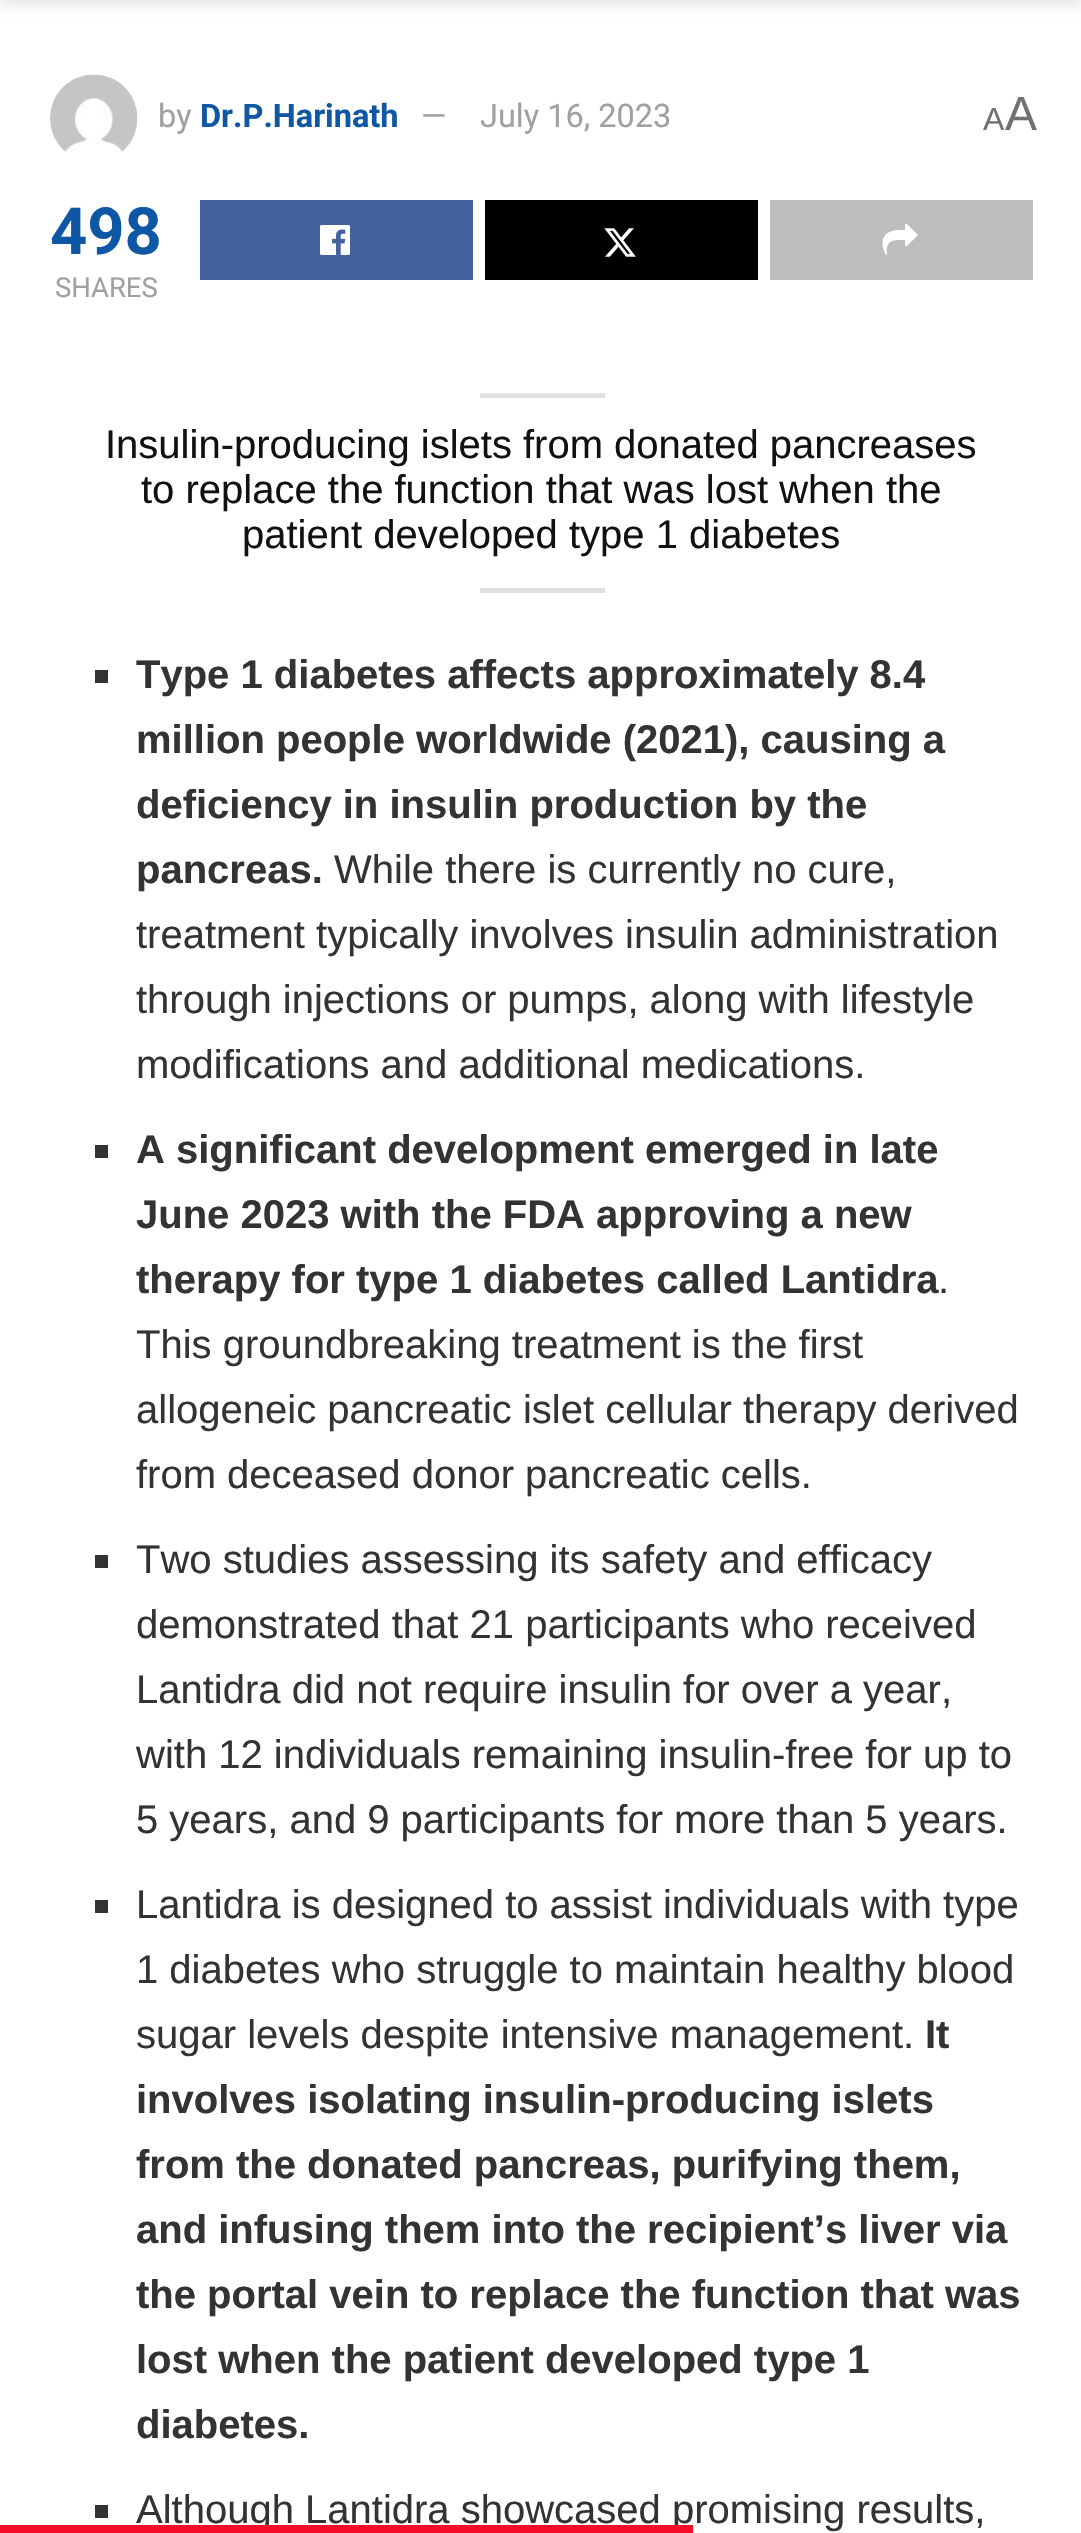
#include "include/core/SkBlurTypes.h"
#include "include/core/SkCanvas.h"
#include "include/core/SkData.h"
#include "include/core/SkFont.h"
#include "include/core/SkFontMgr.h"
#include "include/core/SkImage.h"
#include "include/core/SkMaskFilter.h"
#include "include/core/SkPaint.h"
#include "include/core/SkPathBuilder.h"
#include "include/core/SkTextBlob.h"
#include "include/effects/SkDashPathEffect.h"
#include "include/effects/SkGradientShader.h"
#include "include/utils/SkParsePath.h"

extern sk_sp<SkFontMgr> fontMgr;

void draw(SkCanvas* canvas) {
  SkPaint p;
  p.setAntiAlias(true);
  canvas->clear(SK_ColorWHITE);
  p.setColor(SkColorSetARGB(26, 0, 0, 0));
  p.setMaskFilter(SkMaskFilter::MakeBlur(kNormal_SkBlurStyle, 7.5f));
  canvas->drawRect(SkRect::MakeLTRB(0, -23, 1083, 5), p);
  p.setMaskFilter(nullptr);
  canvas->drawImageRect(SkImages::DeferredFromEncodedData(SkData::MakeFromFileName("images/1.png")), SkRect::MakeLTRB(50, 74, 138, 152), SkSamplingOptions());
  p.setColor(SkColorSetRGB(69, 98, 159));
  canvas->drawRect(SkRect::MakeLTRB(200, 200, 473, 280), p);
  canvas->drawImageRect(SkImages::DeferredFromEncodedData(SkData::MakeFromFileName("images/2.png")), SkRect::MakeLTRB(320, 225, 350, 255), SkSamplingOptions());
  p.setColor(SK_ColorBLACK);
  canvas->drawRect(SkRect::MakeLTRB(485, 200, 758, 280), p);
  canvas->drawImageRect(SkImages::DeferredFromEncodedData(SkData::MakeFromFileName("images/3.png")), SkRect::MakeLTRB(604, 228, 636, 257), SkSamplingOptions());
  p.setColor(SkColorSetRGB(189, 189, 189));
  canvas->drawRect(SkRect::MakeLTRB(770, 200, 1033, 280), p);
  canvas->drawImageRect(SkImages::DeferredFromEncodedData(SkData::MakeFromFileName("images/4.png")), SkRect::MakeLTRB(882, 223, 918, 255), SkSamplingOptions());
  p.setColor(SkColorSetRGB(224, 224, 224));
  canvas->drawRect(SkRect::MakeLTRB(480, 393, 605, 398), p);
  canvas->drawRect(SkRect::MakeLTRB(480, 588, 605, 593), p);
  p.setColor(SkColorSetRGB(51, 51, 51));
  canvas->drawRect(SkRect::MakeLTRB(95, 670, 108, 683), p);
  canvas->drawRect(SkRect::MakeLTRB(95, 1145, 108, 1158), p);
  canvas->drawRect(SkRect::MakeLTRB(95, 1555, 108, 1568), p);
  canvas->drawRect(SkRect::MakeLTRB(95, 1900, 108, 1913), p);
  canvas->drawRect(SkRect::MakeLTRB(95, 2505, 108, 2518), p);
  SkFont font1(fontMgr->matchFamilyStyle("Roboto", SkFontStyle::Normal()), 32.5f);
  font1.setSubpixel(true);
  p.setColor(SkColorSetRGB(160, 160, 160));
  canvas->drawString("by", 158, 127, font1, p);
  SkFont font2(fontMgr->matchFamilyStyle("Roboto", SkFontStyle::Bold()), 32.5f);
  font2.setSubpixel(true);
  p.setColor(SkColorSetRGB(14, 87, 165));
  canvas->drawString("Dr.P.Harinath", 200, 127, font2, p);
  p.setColor(SkColorSetRGB(160, 160, 160));
  canvas->drawString("—", 421, 127, font1, p);
  canvas->drawString("July 16, 2023", 480, 127, font1, p);
  SkFont font3(fontMgr->matchFamilyStyle("Liberation Sans", SkFontStyle::Normal()), 32);
  font3.setSubpixel(true);
  p.setColor(SkColorSetRGB(112, 112, 112));
  canvas->drawString("A", 983, 130, font3, p);
  SkFont font4(fontMgr->matchFamilyStyle("Liberation Sans", SkFontStyle::Normal()), 48);
  font4.setSubpixel(true);
  canvas->drawString("A", 1005, 130, font4, p);
  SkFont font5(fontMgr->matchFamilyStyle("Roboto", SkFontStyle::Bold()), 65);
  font5.setSubpixel(true);
  p.setColor(SkColorSetRGB(14, 87, 165));
  canvas->drawString("498", 50, 254, font5, p);
  SkFont font6(fontMgr->matchFamilyStyle("Roboto", SkFontStyle::Normal()), 27.5f);
  font6.setSubpixel(true);
  p.setColor(SkColorSetRGB(160, 160, 160));
  canvas->drawString("SHARES", 55, 297, font6, p);
  SkFont font7(fontMgr->matchFamilyStyle("Liberation Sans", SkFontStyle::Normal()), 40);
  font7.setSubpixel(true);
  p.setColor(SkColorSetRGB(17, 17, 17));
  canvas->drawString("Insulin-producing islets from donated pancreases", 105, 458, font7, p);
  canvas->drawString("to replace the function that was lost when the", 141, 503, font7, p);
  canvas->drawString("patient developed type 1 diabetes", 242, 548, font7, p);
  SkFont font8(fontMgr->matchFamilyStyle("Liberation Sans", SkFontStyle::Bold()), 40);
  font8.setSubpixel(true);
  p.setColor(SkColorSetRGB(51, 51, 51));
  canvas->drawString("Type 1 diabetes affects approximately 8.4", 136, 688, font8, p);
  canvas->drawString("million people worldwide (2021), causing a", 136, 753, font8, p);
  canvas->drawString("deficiency in insulin production by the", 136, 818, font8, p);
  canvas->drawString("pancreas.", 136, 883, font8, p);
  canvas->drawString("While there is currently no cure,", 334, 883, font7, p);
  canvas->drawString("treatment typically involves insulin administration", 136, 948, font7, p);
  canvas->drawString("through injections or pumps, along with lifestyle", 136, 1013, font7, p);
  canvas->drawString("modifications and additional medications.", 136, 1078, font7, p);
  canvas->drawString("A significant development emerged in late", 136, 1163, font8, p);
  canvas->drawString("June 2023 with the FDA approving a new", 136, 1228, font8, p);
  canvas->drawString("therapy for type 1 diabetes called Lantidra", 136, 1293, font8, p);
  canvas->drawString(".", 938, 1293, font7, p);
  canvas->drawString("This groundbreaking treatment is the first", 136, 1358, font7, p);
  canvas->drawString("allogeneic pancreatic islet cellular therapy derived", 136, 1423, font7, p);
  canvas->drawString("from deceased donor pancreatic cells.", 136, 1488, font7, p);
  canvas->drawString("Two studies assessing its safety and efficacy", 136, 1573, font7, p);
  canvas->drawString("demonstrated that 21 participants who received", 136, 1638, font7, p);
  canvas->drawString("Lantidra did not require insulin for over a year,", 136, 1703, font7, p);
  canvas->drawString("with 12 individuals remaining insulin-free for up to", 136, 1768, font7, p);
  canvas->drawString("5 years, and 9 participants for more than 5 years.", 136, 1833, font7, p);
  canvas->drawString("Lantidra is designed to assist individuals with type", 136, 1918, font7, p);
  canvas->drawString("1 diabetes who struggle to maintain healthy blood", 136, 1983, font7, p);
  canvas->drawString("sugar levels despite intensive management.", 136, 2048, font7, p);
  canvas->drawString("It", 925, 2048, font8, p);
  canvas->drawString("involves isolating insulin-producing islets", 136, 2113, font8, p);
  canvas->drawString("from the donated pancreas, purifying them,", 136, 2178, font8, p);
  canvas->drawString("and infusing them into the recipient’s liver via", 136, 2243, font8, p);
  canvas->drawString("the portal vein to replace the function that was", 136, 2308, font8, p);
  canvas->drawString("lost when the patient developed type 1", 136, 2373, font8, p);
  canvas->drawString("diabetes.", 136, 2438, font8, p);
  canvas->drawString("Although Lantidra showcased promising results,", 136, 2523, font7, p);
  p.setColor(SkColorSetRGB(247, 13, 40));
  canvas->drawRect(SkRect::MakeLTRB(0, 2525, 693, 2533), p);
}
